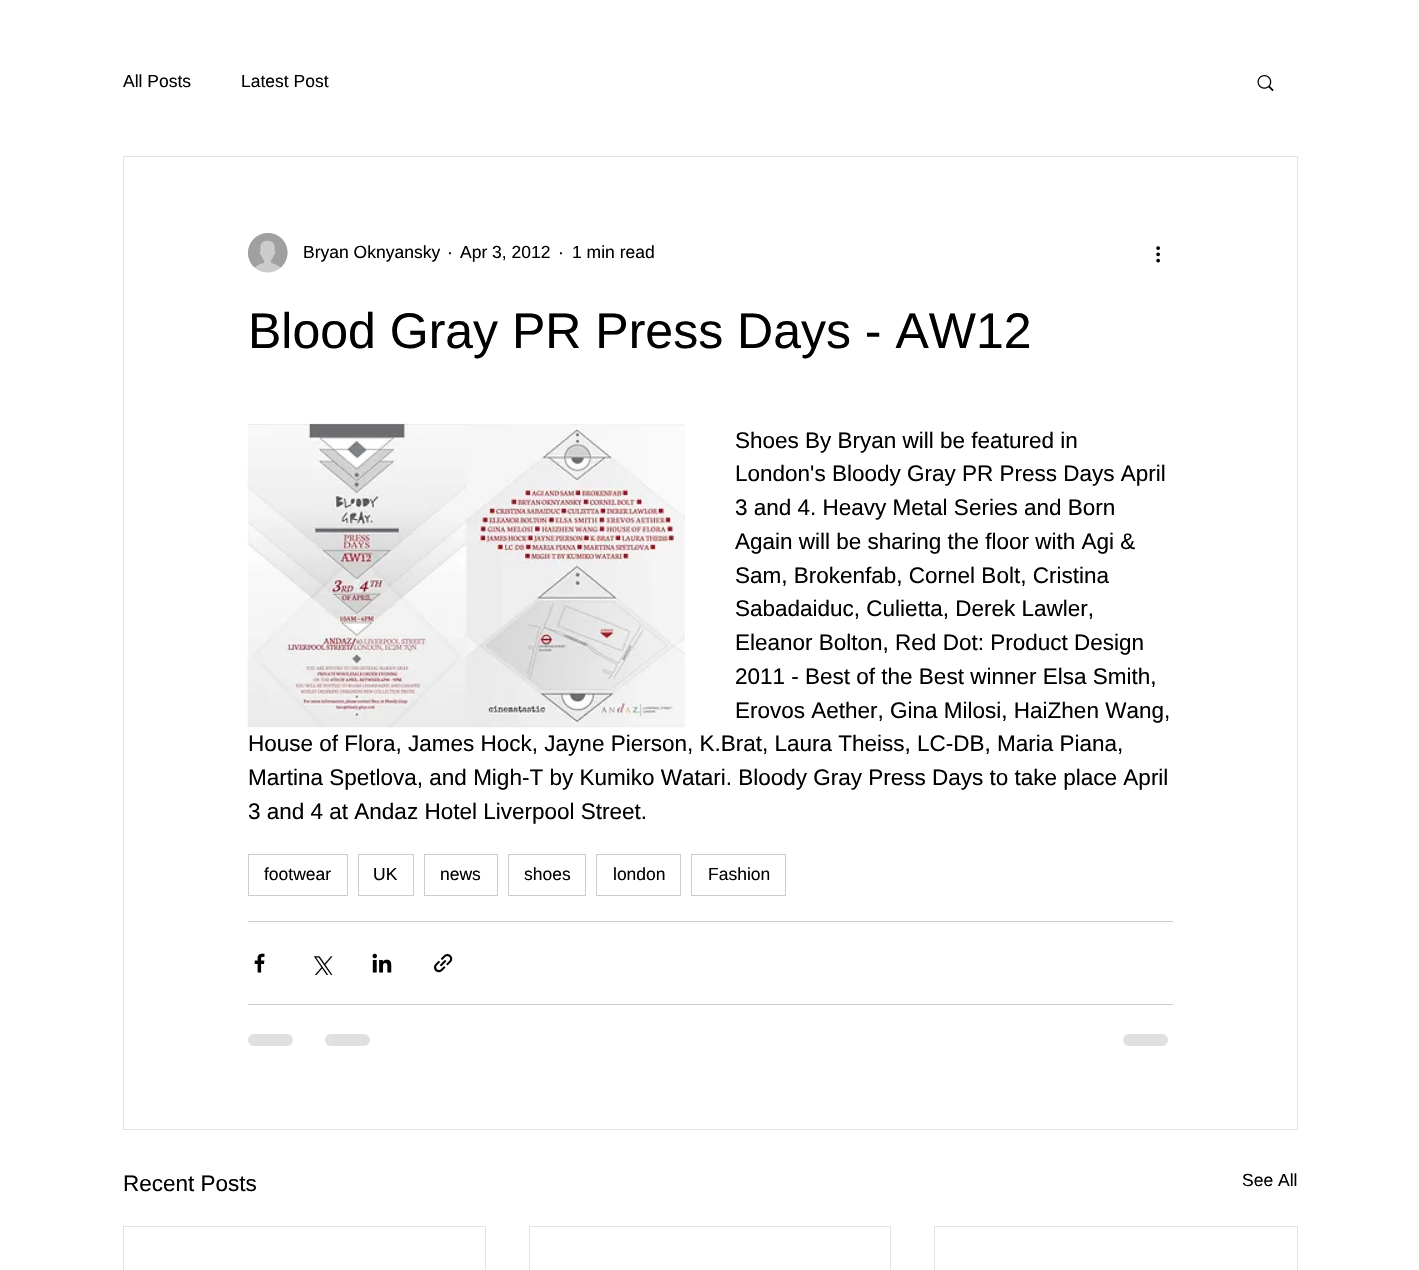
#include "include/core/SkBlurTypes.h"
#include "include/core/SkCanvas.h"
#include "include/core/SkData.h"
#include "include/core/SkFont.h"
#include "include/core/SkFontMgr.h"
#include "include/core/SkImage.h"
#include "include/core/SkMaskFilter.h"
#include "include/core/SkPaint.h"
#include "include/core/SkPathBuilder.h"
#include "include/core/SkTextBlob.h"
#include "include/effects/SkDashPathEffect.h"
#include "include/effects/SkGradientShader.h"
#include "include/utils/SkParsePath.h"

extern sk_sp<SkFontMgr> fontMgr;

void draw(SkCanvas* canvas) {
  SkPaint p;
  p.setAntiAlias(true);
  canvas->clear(SK_ColorWHITE);
  canvas->drawImageRect(SkImages::DeferredFromEncodedData(SkData::MakeFromFileName("images/1.png")), SkRect::MakeLTRB(1257, 75, 1274, 92), SkSamplingOptions());
  p.setStyle(SkPaint::kStroke_Style);
  p.setStrokeWidth(1);
  p.setColor(SkColorSetRGB(227, 227, 227));
  canvas->drawRect(SkRect::MakeLTRB(123.5f, 156.5f, 1297.5f, 1129.5f), p);
  canvas->drawImageRect(SkImages::DeferredFromEncodedData(SkData::MakeFromFileName("images/2.png")), SkRect::MakeLTRB(248, 233, 288, 273), SkSamplingOptions());
  canvas->drawImageRect(SkImages::DeferredFromEncodedData(SkData::MakeFromFileName("images/3.png")), SkRect::MakeLTRB(1156, 246, 1160, 263), SkSamplingOptions());
  canvas->drawImageRect(SkImages::DeferredFromEncodedData(SkData::MakeFromFileName("images/4.png")), SkRect::MakeLTRB(247, 423, 685, 728), SkSamplingOptions());
  p.setColor(SkColorSetRGB(204, 204, 204));
  canvas->drawRect(SkRect::MakeLTRB(248.5f, 854.5f, 347.5f, 895.5f), p);
  canvas->drawRect(SkRect::MakeLTRB(358.5f, 854.5f, 413.5f, 895.5f), p);
  canvas->drawRect(SkRect::MakeLTRB(424.5f, 854.5f, 497.5f, 895.5f), p);
  canvas->drawRect(SkRect::MakeLTRB(508.5f, 854.5f, 585.5f, 895.5f), p);
  canvas->drawRect(SkRect::MakeLTRB(596.5f, 854.5f, 680.5f, 895.5f), p);
  canvas->drawRect(SkRect::MakeLTRB(691.5f, 854.5f, 785.5f, 895.5f), p);
  p.setStyle(SkPaint::kFill_Style);
  canvas->drawRect(SkRect::MakeLTRB(248, 921, 1173, 922), p);
  canvas->drawImageRect(SkImages::DeferredFromEncodedData(SkData::MakeFromFileName("images/5.png")), SkRect::MakeLTRB(254, 953, 265, 973), SkSamplingOptions());
  canvas->drawImageRect(SkImages::DeferredFromEncodedData(SkData::MakeFromFileName("images/6.png")), SkRect::MakeLTRB(313, 956, 333, 975), SkSamplingOptions());
  canvas->drawImageRect(SkImages::DeferredFromEncodedData(SkData::MakeFromFileName("images/7.png")), SkRect::MakeLTRB(372, 953, 392, 973), SkSamplingOptions());
  canvas->drawImageRect(SkImages::DeferredFromEncodedData(SkData::MakeFromFileName("images/8.png")), SkRect::MakeLTRB(434, 954, 453, 973), SkSamplingOptions());
  canvas->drawRect(SkRect::MakeLTRB(248, 1004, 1173, 1005), p);
  p.setColor(SkColorSetRGB(224, 224, 224));
  canvas->drawRoundRect(SkRect::MakeLTRB(248, 1034, 293, 1046), 6, 6, p);
  canvas->drawRoundRect(SkRect::MakeLTRB(325, 1034, 370, 1046), 6, 6, p);
  canvas->drawRoundRect(SkRect::MakeLTRB(1123, 1034, 1168, 1046), 6, 6, p);
  p.setStyle(SkPaint::kStroke_Style);
  p.setColor(SkColorSetRGB(227, 227, 227));
  canvas->drawRect(SkRect::MakeLTRB(123.5f, 1226.5f, 485.5f, 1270.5f), p);
  canvas->drawRect(SkRect::MakeLTRB(529.5f, 1226.5f, 890.5f, 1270.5f), p);
  canvas->drawRect(SkRect::MakeLTRB(934.5f, 1226.5f, 1297.5f, 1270.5f), p);
  SkFont font1(fontMgr->matchFamilyStyle("Liberation Sans", SkFontStyle::Normal()), 17.5f);
  font1.setSubpixel(true);
  p.setStyle(SkPaint::kFill_Style);
  p.setColor(SK_ColorBLACK);
  canvas->drawString("All Posts", 123, 87, font1, p);
  canvas->drawString("Latest Post", 241, 87, font1, p);
  canvas->drawString("Bryan Oknyansky", 303, 258, font1, p);
  canvas->drawString("·", 447, 258, font1, p);
  canvas->drawString("Apr 3, 2012", 460, 258, font1, p);
  canvas->drawString("·", 558, 258, font1, p);
  canvas->drawString("1 min read", 572, 258, font1, p);
  SkFont font2(fontMgr->matchFamilyStyle("Liberation Sans", SkFontStyle::Normal()), 50);
  font2.setSubpixel(true);
  canvas->drawString("Blood Gray PR Press Days - AW12", 248, 348, font2, p);
  SkFont font3(fontMgr->matchFamilyStyle("Liberation Sans", SkFontStyle::Normal()), 22.5f);
  font3.setSubpixel(true);
  canvas->drawString("Shoes By Bryan will be featured in", 735, 448, font3, p);
  canvas->drawString("London's Bloody Gray PR Press Days April", 735, 481, font3, p);
  canvas->drawString("3 and 4. Heavy Metal Series and Born", 735, 515, font3, p);
  canvas->drawString("Again will be sharing the floor with Agi &", 735, 549, font3, p);
  canvas->drawString("Sam, Brokenfab, Cornel Bolt, Cristina", 735, 583, font3, p);
  canvas->drawString("Sabadaiduc, Culietta, Derek Lawler,", 735, 616, font3, p);
  canvas->drawString("Eleanor Bolton, Red Dot: Product Design", 735, 650, font3, p);
  canvas->drawString("2011 - Best of the Best winner Elsa Smith,", 735, 684, font3, p);
  canvas->drawString("Erovos Aether, Gina Milosi, HaiZhen Wang,", 735, 718, font3, p);
  canvas->drawString("House of Flora, James Hock, Jayne Pierson, K.Brat, Laura Theiss, LC-DB, Maria Piana,", 248, 751, font3, p);
  canvas->drawString("Martina Spetlova, and Migh-T by Kumiko Watari. Bloody Gray Press Days to take place April", 248, 785, font3, p);
  canvas->drawString("3 and 4 at Andaz Hotel Liverpool Street.", 248, 819, font3, p);
  canvas->drawString("footwear", 264, 880, font1, p);
  canvas->drawString("UK", 373, 880, font1, p);
  canvas->drawString("news", 440, 880, font1, p);
  canvas->drawString("shoes", 524, 880, font1, p);
  canvas->drawString("london", 613, 880, font1, p);
  canvas->drawString("Fashion", 708, 880, font1, p);
  canvas->drawString("Recent Posts", 123, 1191, font3, p);
  canvas->drawString("See All", 1242, 1186, font1, p);
}
